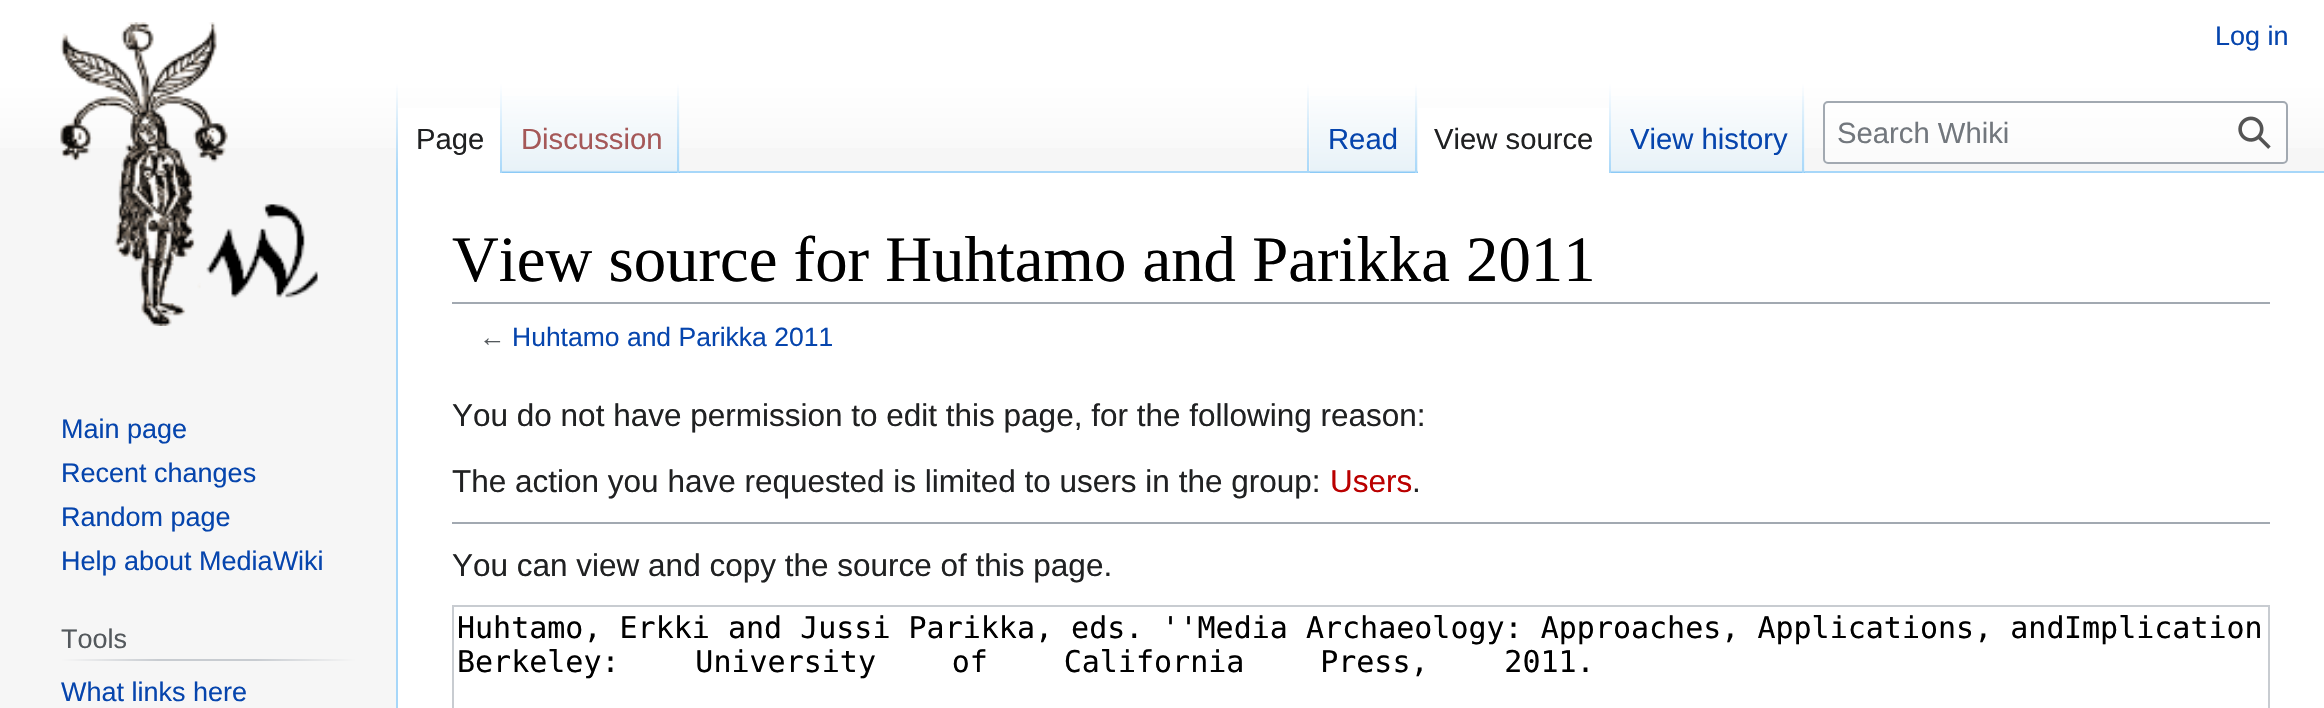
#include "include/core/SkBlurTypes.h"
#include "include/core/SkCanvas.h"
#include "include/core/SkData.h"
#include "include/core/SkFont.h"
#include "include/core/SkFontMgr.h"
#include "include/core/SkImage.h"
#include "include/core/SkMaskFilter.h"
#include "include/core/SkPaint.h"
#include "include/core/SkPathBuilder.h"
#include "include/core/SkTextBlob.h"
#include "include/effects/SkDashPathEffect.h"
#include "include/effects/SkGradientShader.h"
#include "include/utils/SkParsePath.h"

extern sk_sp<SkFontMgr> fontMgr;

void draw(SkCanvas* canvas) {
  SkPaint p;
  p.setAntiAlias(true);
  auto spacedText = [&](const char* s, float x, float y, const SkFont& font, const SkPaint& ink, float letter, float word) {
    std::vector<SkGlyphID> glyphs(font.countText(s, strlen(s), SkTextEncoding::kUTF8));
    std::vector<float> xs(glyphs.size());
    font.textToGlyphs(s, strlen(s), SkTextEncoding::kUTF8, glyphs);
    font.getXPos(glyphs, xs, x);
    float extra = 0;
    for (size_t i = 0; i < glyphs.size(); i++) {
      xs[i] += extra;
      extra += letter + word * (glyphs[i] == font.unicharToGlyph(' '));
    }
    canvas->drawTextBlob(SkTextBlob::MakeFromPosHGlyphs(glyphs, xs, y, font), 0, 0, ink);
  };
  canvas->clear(SkColorSetRGB(246, 246, 246));
  {
    const SkColor colors[] = {SK_ColorWHITE, SkColorSetRGB(246, 246, 246)};
    const float stops[] = {0.5f, 1};
    const SkPoint ends[] = {{1162, -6.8f}, {1162, 173}};
    p.setShader(SkGradientShader::MakeLinear(ends, colors, stops, 2, SkTileMode::kClamp));
    p.setAlpha(255);
  }
  canvas->drawRect(SkRect::MakeLTRB(0, 0, 2324, 148), p);
  p.setShader(nullptr);
  p.setColor(SkColorSetRGB(167, 215, 249));
  canvas->drawRect(SkRect::MakeLTRB(396, 171, 398, 708), p);
  {
    const SkColor colors[] = {SkColorSetARGB(0, 167, 215, 249), SkColorSetRGB(167, 215, 249)};
    const float stops[] = {0, 1};
    const SkPoint ends[] = {{397, 83}, {397, 173}};
    p.setShader(SkGradientShader::MakeLinear(ends, colors, stops, 2, SkTileMode::kClamp));
    p.setAlpha(255);
  }
  canvas->drawRect(SkRect::MakeLTRB(396, 83, 398, 173), p);
  p.setShader(nullptr);
  p.setColor(SK_ColorWHITE);
  canvas->drawRect(SkRect::MakeLTRB(398, 108, 500, 173), p);
  {
    const SkColor colors[] = {SK_ColorWHITE, SkColorSetRGB(167, 215, 249)};
    const float stops[] = {0, 1};
    const SkPoint ends[] = {{501, 83}, {501, 173}};
    p.setShader(SkGradientShader::MakeLinear(ends, colors, stops, 2, SkTileMode::kClamp));
    p.setAlpha(255);
  }
  canvas->drawRect(SkRect::MakeLTRB(500, 83, 502, 173), p);
  {
    const SkColor colors[] = {SkColorSetRGB(119, 193, 246), SkColorSetRGB(232, 242, 248), SK_ColorWHITE};
    const float stops[] = {0, 0.03f, 1};
    const SkPoint ends[] = {{591, 173}, {591, 83}};
    p.setShader(SkGradientShader::MakeLinear(ends, colors, stops, 3, SkTileMode::kClamp));
    p.setAlpha(255);
  }
  canvas->drawRect(SkRect::MakeLTRB(502, 96, 680, 173), p);
  {
    const SkColor colors[] = {SkColorSetARGB(0, 167, 215, 249), SkColorSetRGB(167, 215, 249)};
    const float stops[] = {0, 1};
    const SkPoint ends[] = {{678, 83}, {678, 173}};
    p.setShader(SkGradientShader::MakeLinear(ends, colors, stops, 2, SkTileMode::kClamp));
    p.setAlpha(255);
  }
  canvas->drawRect(SkRect::MakeLTRB(677, 83, 679, 173), p);
  p.setShader(nullptr);
  p.setColor(SkColorSetRGB(167, 215, 249));
  canvas->drawRect(SkRect::MakeLTRB(680, 171, 2324, 173), p);
  {
    const SkColor colors[] = {SkColorSetARGB(0, 167, 215, 249), SkColorSetRGB(167, 215, 249)};
    const float stops[] = {0, 1};
    const SkPoint ends[] = {{1308, 83}, {1308, 173}};
    p.setShader(SkGradientShader::MakeLinear(ends, colors, stops, 2, SkTileMode::kClamp));
    p.setAlpha(255);
  }
  canvas->drawRect(SkRect::MakeLTRB(1307, 83, 1309, 173), p);
  {
    const SkColor colors[] = {SkColorSetRGB(119, 193, 246), SkColorSetRGB(232, 242, 248), SK_ColorWHITE};
    const float stops[] = {0, 0.03f, 1};
    const SkPoint ends[] = {{1364, 173}, {1364, 83}};
    p.setShader(SkGradientShader::MakeLinear(ends, colors, stops, 3, SkTileMode::kClamp));
    p.setAlpha(255);
  }
  canvas->drawRect(SkRect::MakeLTRB(1310, 96, 1418, 173), p);
  {
    const SkColor colors[] = {SkColorSetARGB(0, 167, 215, 249), SkColorSetRGB(167, 215, 249)};
    const float stops[] = {0, 1};
    const SkPoint ends[] = {{1416, 83}, {1416, 173}};
    p.setShader(SkGradientShader::MakeLinear(ends, colors, stops, 2, SkTileMode::kClamp));
    p.setAlpha(255);
  }
  canvas->drawRect(SkRect::MakeLTRB(1415, 83, 1417, 173), p);
  p.setShader(nullptr);
  p.setColor(SK_ColorWHITE);
  canvas->drawRect(SkRect::MakeLTRB(1418, 108, 1609, 173), p);
  {
    const SkColor colors[] = {SK_ColorWHITE, SkColorSetRGB(167, 215, 249)};
    const float stops[] = {0, 1};
    const SkPoint ends[] = {{1610, 83}, {1610, 173}};
    p.setShader(SkGradientShader::MakeLinear(ends, colors, stops, 2, SkTileMode::kClamp));
    p.setAlpha(255);
  }
  canvas->drawRect(SkRect::MakeLTRB(1609, 83, 1611, 173), p);
  {
    const SkColor colors[] = {SkColorSetRGB(119, 193, 246), SkColorSetRGB(232, 242, 248), SK_ColorWHITE};
    const float stops[] = {0, 0.03f, 1};
    const SkPoint ends[] = {{1708, 173}, {1708, 83}};
    p.setShader(SkGradientShader::MakeLinear(ends, colors, stops, 3, SkTileMode::kClamp));
    p.setAlpha(255);
  }
  canvas->drawRect(SkRect::MakeLTRB(1611, 96, 1805, 173), p);
  {
    const SkColor colors[] = {SkColorSetARGB(0, 167, 215, 249), SkColorSetRGB(167, 215, 249)};
    const float stops[] = {0, 1};
    const SkPoint ends[] = {{1803, 83}, {1803, 173}};
    p.setShader(SkGradientShader::MakeLinear(ends, colors, stops, 2, SkTileMode::kClamp));
    p.setAlpha(255);
  }
  canvas->drawRect(SkRect::MakeLTRB(1802, 83, 1804, 173), p);
  p.setShader(nullptr);
  p.setColor(SkColorSetARGB(128, 255, 255, 255));
  canvas->drawRoundRect(SkRect::MakeLTRB(1824, 102, 2287, 163), 4, 4, p);
  p.setStyle(SkPaint::kStroke_Style);
  p.setStrokeWidth(2);
  p.setColor(SkColorSetRGB(162, 169, 177));
  canvas->drawRoundRect(SkRect::MakeLTRB(1824, 102, 2287, 163), 4, 4, p);
  canvas->drawImageRect(SkImages::DeferredFromEncodedData(SkData::MakeFromFileName("images/1.png")), SkRect::MakeLTRB(2238, 116, 2271, 149), SkSamplingOptions());
  canvas->drawImageRect(SkImages::DeferredFromEncodedData(SkData::MakeFromFileName("images/2.png")), SkRect::MakeLTRB(60, 22, 318, 326), SkSamplingOptions());
  p.setStyle(SkPaint::kFill_Style);
  {
    const SkColor colors[] = {SkColorSetRGB(246, 246, 246), SkColorSetRGB(200, 204, 209), SkColorSetRGB(200, 204, 209), SkColorSetRGB(246, 246, 246)};
    const float stops[] = {0, 0.33f, 0.66f, 1};
    const SkPoint ends[] = {{61, 660}, {356, 660}};
    p.setShader(SkGradientShader::MakeLinear(ends, colors, stops, 4, SkTileMode::kClamp));
    p.setAlpha(255);
  }
  canvas->drawRect(SkRect::MakeLTRB(61, 659, 356, 661), p);
  p.setShader(nullptr);
  p.setColor(SK_ColorWHITE);
  canvas->drawRect(SkRect::MakeLTRB(398, 173, 2324, 708), p);
  p.setColor(SkColorSetRGB(162, 169, 177));
  canvas->drawRect(SkRect::MakeLTRB(452, 302, 2270, 304), p);
  canvas->drawRect(SkRect::MakeLTRB(452, 522, 2270, 524), p);
  p.setStyle(SkPaint::kStroke_Style);
  p.setColor(SkColorSetRGB(200, 204, 209));
  canvas->drawRect(SkRect::MakeLTRB(453, 606, 2269, 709), p);
  SkFont font1(fontMgr->matchFamilyStyle("Liberation Sans", SkFontStyle::Normal()), 27);
  font1.setSubpixel(true);
  p.setStyle(SkPaint::kFill_Style);
  p.setColor(SkColorSetRGB(6, 69, 173));
  canvas->drawString("Log in", 2215, 45, font1, p);
  SkFont font2(fontMgr->matchFamilyStyle("Liberation Sans", SkFontStyle::Normal()), 29.25f);
  font2.setSubpixel(true);
  p.setColor(SkColorSetRGB(32, 33, 34));
  canvas->drawString("Page", 416, 149, font2, p);
  p.setColor(SkColorSetRGB(165, 88, 88));
  canvas->drawString("Discussion", 521, 149, font2, p);
  p.setColor(SkColorSetRGB(6, 69, 173));
  canvas->drawString("Read", 1328, 149, font2, p);
  p.setColor(SkColorSetRGB(32, 33, 34));
  canvas->drawString("View source", 1434, 149, font2, p);
  p.setColor(SkColorSetRGB(6, 69, 173));
  canvas->drawString("View history", 1630, 149, font2, p);
  p.setColor(SkColorSetRGB(114, 119, 125));
  canvas->drawString("Search Whiki", 1837, 143, font2, p);
  p.setColor(SkColorSetRGB(6, 69, 173));
  canvas->drawString("Main page", 61, 438, font1, p);
  canvas->drawString("Recent changes", 61, 482, font1, p);
  canvas->drawString("Random page", 61, 526, font1, p);
  canvas->drawString("Help about MediaWiki", 61, 570, font1, p);
  p.setColor(SkColorSetRGB(84, 89, 93));
  canvas->drawString("Tools", 61, 648, font1, p);
  p.setColor(SkColorSetRGB(6, 69, 173));
  canvas->drawString("What links here", 61, 701, font1, p);
  SkFont font3(fontMgr->matchFamilyStyle("Liberation Serif", SkFontStyle::Normal()), 64.75f);
  font3.setSubpixel(true);
  p.setColor(SK_ColorBLACK);
  canvas->drawString("View source for Huhtamo and Parikka 2011", 452, 281, font3, p);
  SkFont font4(fontMgr->matchFamilyStyle("Liberation Sans", SkFontStyle::Normal()), 26.5f);
  font4.setSubpixel(true);
  p.setColor(SkColorSetRGB(84, 89, 93));
  canvas->drawString("←", 479, 346, font4, p);
  p.setColor(SkColorSetRGB(6, 69, 173));
  canvas->drawString("Huhtamo and Parikka 2011", 512, 346, font4, p);
  SkFont font5(fontMgr->matchFamilyStyle("Liberation Sans", SkFontStyle::Normal()), 31.5f);
  font5.setSubpixel(true);
  p.setColor(SkColorSetRGB(32, 33, 34));
  canvas->drawString("You do not have permission to edit this page, for the following reason:", 452, 426, font5, p);
  canvas->drawString("The action you have requested is limited to users in the group:", 452, 492, font5, p);
  p.setColor(SkColorSetRGB(186, 0, 0));
  canvas->drawString("Users", 1330, 492, font5, p);
  p.setColor(SkColorSetRGB(32, 33, 34));
  canvas->drawString(".", 1412, 492, font5, p);
  canvas->drawString("You can view and copy the source of this page.", 452, 576, font5, p);
  SkFont font6(fontMgr->matchFamilyStyle("DejaVu Sans Mono", SkFontStyle::Normal()), 30);
  font6.setSubpixel(true);
  p.setColor(SK_ColorBLACK);
  canvas->drawString("Huhtamo, Erkki and Jussi Parikka, eds. ''Media Archaeology: Approaches, Applications, and", 457, 638, font6, p);
  canvas->drawString("Implication", 2064, 638, font6, p);
  spacedText("Berkeley: University of California Press, 2011.", 457, 672, font6, p, 0, 57.75f);
}
